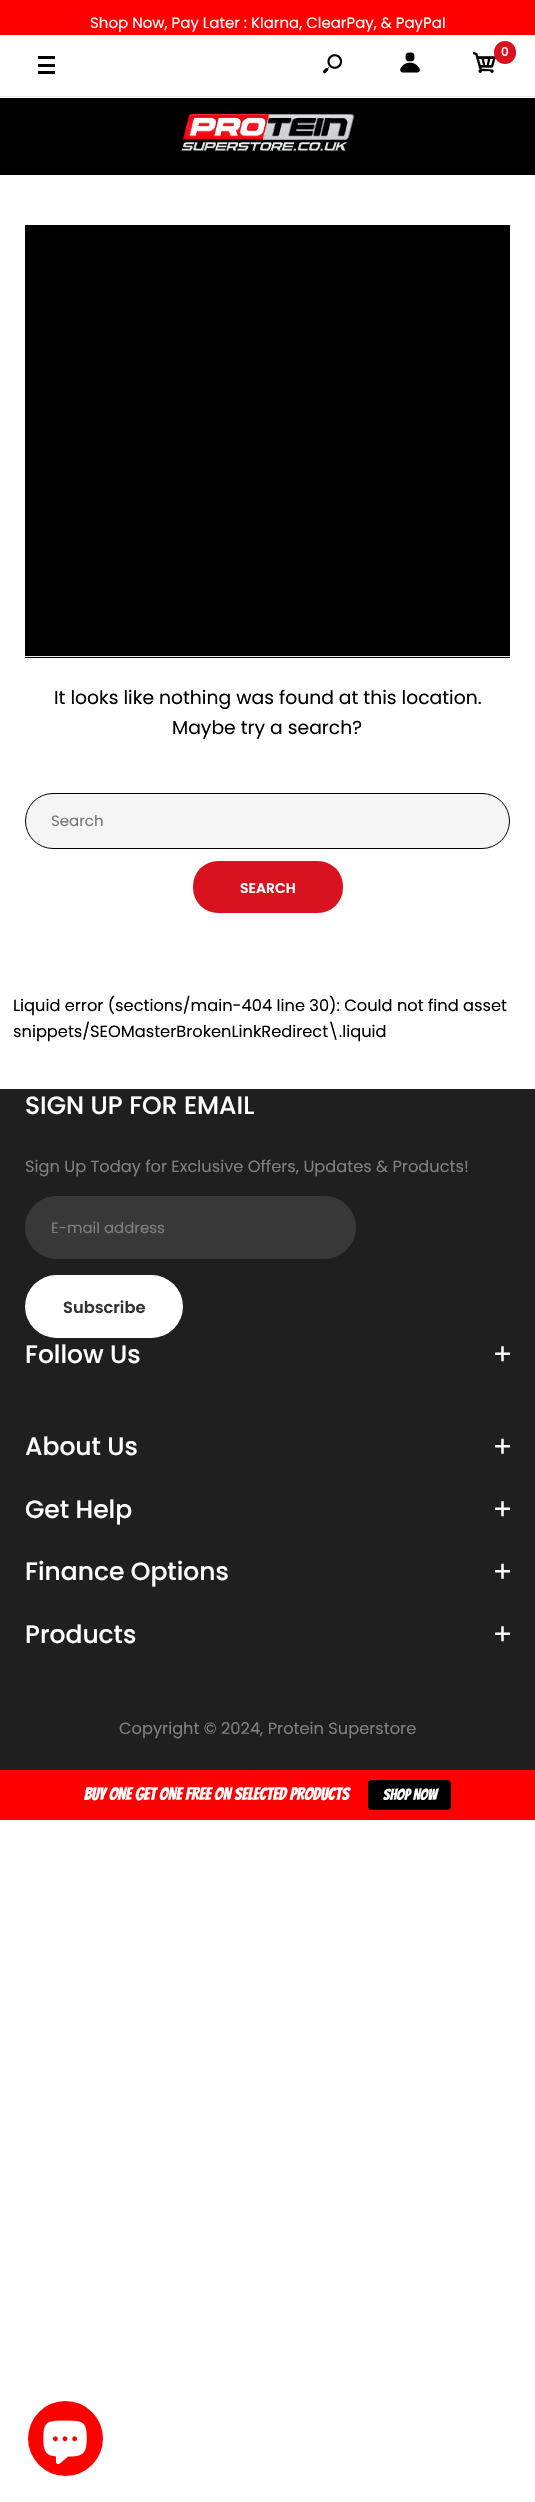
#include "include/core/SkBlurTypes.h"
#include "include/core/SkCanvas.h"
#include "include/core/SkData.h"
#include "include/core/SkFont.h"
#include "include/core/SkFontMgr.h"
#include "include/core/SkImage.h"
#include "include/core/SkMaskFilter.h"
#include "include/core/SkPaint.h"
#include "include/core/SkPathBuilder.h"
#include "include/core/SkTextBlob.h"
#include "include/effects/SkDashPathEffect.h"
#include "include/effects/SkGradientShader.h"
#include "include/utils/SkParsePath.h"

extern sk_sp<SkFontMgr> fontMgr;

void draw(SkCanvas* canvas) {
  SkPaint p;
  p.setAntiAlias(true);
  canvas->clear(SK_ColorWHITE);
  p.setColor(SkColorSetRGB(255, 0, 0));
  canvas->drawRect(SkRect::MakeLTRB(0, 0, 535, 35), p);
  p.setColor(SkColorSetRGB(231, 231, 231));
  canvas->drawRect(SkRect::MakeLTRB(0, 96, 535, 97), p);
  canvas->drawImageRect(SkImages::DeferredFromEncodedData(SkData::MakeFromFileName("images/1.png")), SkRect::MakeLTRB(473, 52, 496, 73), SkSamplingOptions());
  p.setColor(SkColorSetRGB(217, 18, 31));
  canvas->drawRoundRect(SkRect::MakeLTRB(494, 41, 516, 64), 11, 11, p);
  p.setColor(SK_ColorBLACK);
  canvas->drawRect(SkRect::MakeLTRB(38, 64, 55, 67), p);
  canvas->drawRect(SkRect::MakeLTRB(38, 56, 55, 59), p);
  canvas->drawRect(SkRect::MakeLTRB(38, 71, 55, 74), p);
  canvas->drawImageRect(SkImages::DeferredFromEncodedData(SkData::MakeFromFileName("images/2.png")), SkRect::MakeLTRB(323, 54, 343, 74), SkSamplingOptions());
  canvas->drawImageRect(SkImages::DeferredFromEncodedData(SkData::MakeFromFileName("images/3.png")), SkRect::MakeLTRB(400, 52, 420, 73), SkSamplingOptions());
  canvas->drawRect(SkRect::MakeLTRB(0, 98, 535, 175), p);
  canvas->drawImageRect(SkImages::DeferredFromEncodedData(SkData::MakeFromFileName("images/4.png")), SkRect::MakeLTRB(181, 110, 355, 151), SkSamplingOptions());
  canvas->drawRect(SkRect::MakeLTRB(25, 225, 510, 658), p);
  p.setColor(SkColorSetRGB(238, 238, 238));
  canvas->drawRect(SkRect::MakeLTRB(25, 656, 510, 657), p);
  p.setColor(SkColorSetRGB(245, 245, 245));
  canvas->drawRoundRect(SkRect::MakeLTRB(25.5f, 793.5f, 509.5f, 848.5f), 27.5f, 27.5f, p);
  p.setStyle(SkPaint::kStroke_Style);
  p.setStrokeWidth(1);
  p.setColor(SK_ColorBLACK);
  canvas->drawRoundRect(SkRect::MakeLTRB(25.5f, 793.5f, 509.5f, 848.5f), 27.5f, 27.5f, p);
  p.setStyle(SkPaint::kFill_Style);
  p.setColor(SkColorSetRGB(217, 18, 31));
  canvas->drawRoundRect(SkRect::MakeLTRB(193, 861, 343, 913), 25, 25, p);
  p.setColor(SkColorSetRGB(31, 31, 31));
  canvas->drawRect(SkRect::MakeLTRB(0, 1089, 535, 1770), p);
  p.setColor(SkColorSetRGB(56, 56, 56));
  canvas->drawRoundRect(SkRect::MakeLTRB(25.5f, 1196.5f, 355.5f, 1258.5f), 31, 31, p);
  p.setStyle(SkPaint::kStroke_Style);
  canvas->drawRoundRect(SkRect::MakeLTRB(25.5f, 1196.5f, 355.5f, 1258.5f), 31, 31, p);
  p.setStyle(SkPaint::kFill_Style);
  p.setColor(SK_ColorWHITE);
  canvas->drawRoundRect(SkRect::MakeLTRB(25, 1275, 183, 1338), 31.5f, 31.5f, p);
  canvas->drawImageRect(SkImages::DeferredFromEncodedData(SkData::MakeFromFileName("images/5.png")), SkRect::MakeLTRB(495, 1346, 510, 1362), SkSamplingOptions());
  canvas->drawImageRect(SkImages::DeferredFromEncodedData(SkData::MakeFromFileName("images/6.png")), SkRect::MakeLTRB(495, 1438, 510, 1454), SkSamplingOptions());
  canvas->drawImageRect(SkImages::DeferredFromEncodedData(SkData::MakeFromFileName("images/5.png")), SkRect::MakeLTRB(495, 1501, 510, 1517), SkSamplingOptions());
  canvas->drawImageRect(SkImages::DeferredFromEncodedData(SkData::MakeFromFileName("images/6.png")), SkRect::MakeLTRB(495, 1563, 510, 1579), SkSamplingOptions());
  canvas->drawImageRect(SkImages::DeferredFromEncodedData(SkData::MakeFromFileName("images/5.png")), SkRect::MakeLTRB(495, 1626, 510, 1642), SkSamplingOptions());
  p.setColor(SkColorSetRGB(255, 0, 0));
  canvas->drawRect(SkRect::MakeLTRB(0, 1770, 535, 1820), p);
  p.setColor(SK_ColorBLACK);
  canvas->drawRoundRect(SkRect::MakeLTRB(368, 1780, 451, 1810), 4, 4, p);
  p.setColor(SkColorSetRGB(255, 0, 0));
  canvas->drawCircle(65.5f, 2438.5f, 37.5f, p);
  canvas->drawImageRect(SkImages::DeferredFromEncodedData(SkData::MakeFromFileName("images/7.png")), SkRect::MakeLTRB(43, 2420, 87, 2465), SkSamplingOptions());
  SkFont font1(fontMgr->matchFamilyStyle("Poppins", SkFontStyle::Normal()), 15);
  font1.setSubpixel(true);
  p.setColor(SK_ColorWHITE);
  canvas->drawString("Shop Now, Pay Later : Klarna, ClearPay, & PayPal", 90, 28, font1, p);
  SkFont font2(fontMgr->matchFamilyStyle("Poppins", SkFontStyle(500, SkFontStyle::kNormal_Width, SkFontStyle::kUpright_Slant)), 12);
  font2.setSubpixel(true);
  canvas->drawString("0", 501, 56, font2, p);
  SkFont font3(fontMgr->matchFamilyStyle("Poppins", SkFontStyle::Normal()), 18.75f);
  font3.setSubpixel(true);
  p.setColor(SK_ColorBLACK);
  canvas->drawString("It looks like nothing was found at this location.", 54, 704, font3, p);
  canvas->drawString("Maybe try a search?", 172, 734, font3, p);
  p.setColor(SkColorSetRGB(117, 117, 117));
  canvas->drawString("Search", 51, 826, font1, p);
  SkFont font4(fontMgr->matchFamilyStyle("Poppins", SkFontStyle(600, SkFontStyle::kNormal_Width, SkFontStyle::kUpright_Slant)), 14);
  font4.setSubpixel(true);
  p.setColor(SK_ColorWHITE);
  canvas->drawString("SEARCH", 240, 893, font4, p);
  SkFont font5(fontMgr->matchFamilyStyle("Poppins", SkFontStyle::Normal()), 16.25f);
  font5.setSubpixel(true);
  p.setColor(SK_ColorBLACK);
  canvas->drawString("Liquid error (sections/main-404 line 30): Could not find asset", 13, 1011, font5, p);
  canvas->drawString("snippets/SEOMasterBrokenLinkRedirect\\.liquid", 13, 1037, font5, p);
  SkFont font6(fontMgr->matchFamilyStyle("Poppins", SkFontStyle(500, SkFontStyle::kNormal_Width, SkFontStyle::kUpright_Slant)), 25);
  font6.setSubpixel(true);
  p.setColor(SK_ColorWHITE);
  canvas->drawString("SIGN UP FOR EMAIL", 25, 1114, font6, p);
  p.setColor(SkColorSetRGB(128, 128, 128));
  canvas->drawString("Sign Up Today for Exclusive Offers, Updates & Products!", 25, 1172, font5, p);
  canvas->drawString("E-mail address", 51, 1233, font1, p);
  SkFont font7(fontMgr->matchFamilyStyle("Poppins", SkFontStyle(600, SkFontStyle::kNormal_Width, SkFontStyle::kUpright_Slant)), 16.25f);
  font7.setSubpixel(true);
  p.setColor(SkColorSetRGB(51, 51, 51));
  canvas->drawString("Subscribe", 63, 1313, font7, p);
  p.setColor(SK_ColorWHITE);
  canvas->drawString("Follow Us", 25, 1363, font6, p);
  canvas->drawString("About Us", 25, 1455, font6, p);
  canvas->drawString("Get Help", 25, 1518, font6, p);
  canvas->drawString("Finance Options", 25, 1580, font6, p);
  canvas->drawString("Products", 25, 1643, font6, p);
  p.setColor(SkColorSetRGB(128, 128, 128));
  canvas->drawString("Copyright © 2024, Protein Superstore", 119, 1734, font5, p);
  SkFont font8(fontMgr->matchFamilyStyle("Bangers", SkFontStyle::Normal()), 17.5f);
  font8.setSubpixel(true);
  p.setColor(SK_ColorWHITE);
  canvas->drawString("BUY ONE GET ONE FREE ON SELECTED PRODUCTS", 84, 1800, font8, p);
  SkFont font9(fontMgr->matchFamilyStyle("Bangers", SkFontStyle::Normal()), 15.5f);
  font9.setSubpixel(true);
  canvas->drawString("SHOP NOW", 383, 1800, font9, p);
}
